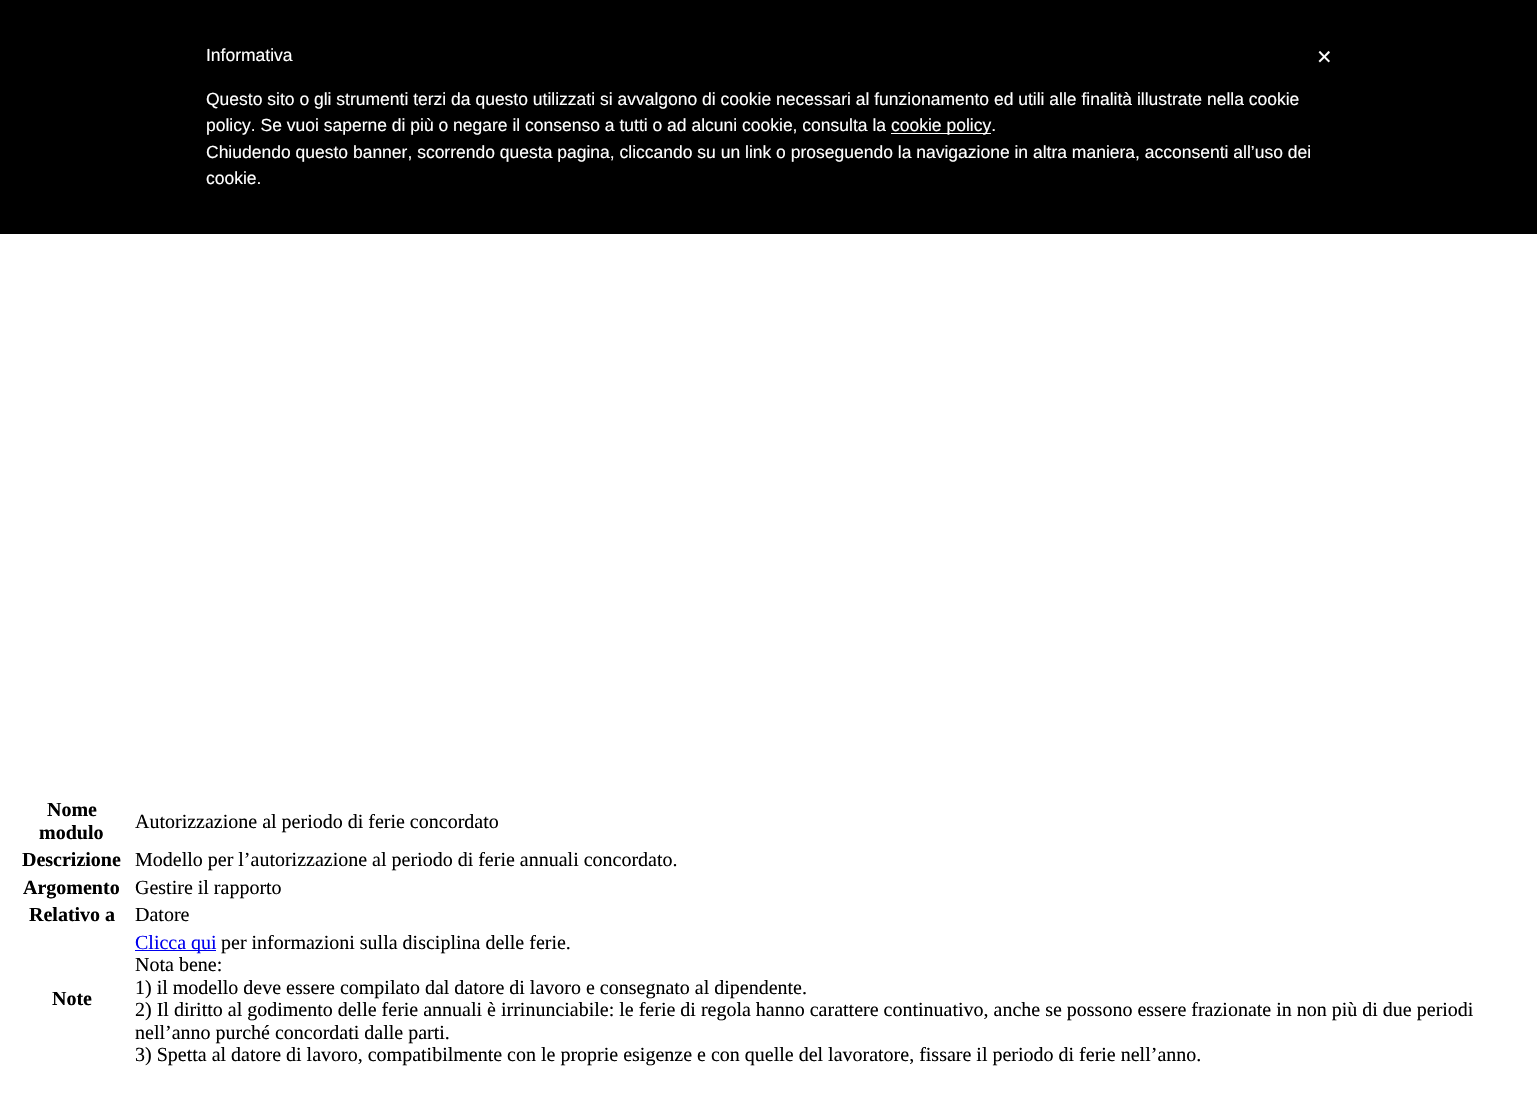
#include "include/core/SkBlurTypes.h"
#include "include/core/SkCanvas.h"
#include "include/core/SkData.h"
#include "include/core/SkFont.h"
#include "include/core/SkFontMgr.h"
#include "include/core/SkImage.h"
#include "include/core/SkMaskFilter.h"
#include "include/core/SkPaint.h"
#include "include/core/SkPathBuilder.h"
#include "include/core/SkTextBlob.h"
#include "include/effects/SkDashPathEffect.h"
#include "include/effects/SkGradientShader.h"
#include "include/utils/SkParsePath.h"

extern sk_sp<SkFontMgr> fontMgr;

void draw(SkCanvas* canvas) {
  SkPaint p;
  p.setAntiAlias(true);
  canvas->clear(SK_ColorWHITE);
  p.setColor(SK_ColorBLACK);
  canvas->drawRect(SkRect::MakeLTRB(0, 0, 1537, 234), p);
  p.setColor(SK_ColorWHITE);
  canvas->drawRect(SkRect::MakeLTRB(891, 133, 991, 134), p);
  p.setColor(SkColorSetRGB(0, 0, 238));
  canvas->drawRect(SkRect::MakeLTRB(135, 950, 216, 951), p);
  SkFont font1(fontMgr->matchFamilyStyle("Liberation Sans", SkFontStyle::Normal()), 17.5f);
  font1.setSubpixel(true);
  p.setColor(SK_ColorWHITE);
  canvas->drawString("Informativa", 206, 61, font1, p);
  canvas->drawString("Questo sito o gli strumenti terzi da questo utilizzati si avvalgono di cookie necessari al funzionamento ed utili alle finalità illustrate nella cookie", 206, 105, font1, p);
  canvas->drawString("policy. Se vuoi saperne di più o negare il consenso a tutti o ad alcuni cookie, consulta la", 206, 131, font1, p);
  canvas->drawString("cookie policy.", 891, 131, font1, p);
  canvas->drawString("Chiudendo questo banner, scorrendo questa pagina, cliccando su un link o proseguendo la navigazione in altra maniera, acconsenti all’uso dei", 206, 158, font1, p);
  canvas->drawString("cookie.", 206, 184, font1, p);
  SkFont font2(fontMgr->matchFamilyStyle("Liberation Sans", SkFontStyle::Normal()), 25);
  font2.setSubpixel(true);
  canvas->drawString("×", 1317, 65, font2, p);
  SkFont font3(fontMgr->matchFamilyStyle("Liberation Serif", SkFontStyle::Bold()), 20);
  font3.setSubpixel(true);
  p.setColor(SK_ColorBLACK);
  canvas->drawString("Nome", 47, 816, font3, p);
  canvas->drawString("modulo", 39, 839, font3, p);
  SkFont font4(fontMgr->matchFamilyStyle("Liberation Serif", SkFontStyle::Normal()), 20);
  font4.setSubpixel(true);
  canvas->drawString("Autorizzazione al periodo di ferie concordato", 135, 828, font4, p);
  canvas->drawString("Descrizione", 22, 866, font3, p);
  canvas->drawString("Modello per l’autorizzazione al periodo di ferie annuali concordato.", 135, 866, font4, p);
  canvas->drawString("Argomento", 23, 894, font3, p);
  canvas->drawString("Gestire il rapporto", 135, 894, font4, p);
  canvas->drawString("Relativo a", 29, 921, font3, p);
  canvas->drawString("Datore", 135, 921, font4, p);
  canvas->drawString("Note", 52, 1005, font3, p);
  p.setColor(SkColorSetRGB(0, 0, 238));
  canvas->drawString("Clicca qui", 135, 949, font4, p);
  p.setColor(SK_ColorBLACK);
  canvas->drawString("per informazioni sulla disciplina delle ferie.", 221, 949, font4, p);
  canvas->drawString("Nota bene:", 135, 971, font4, p);
  canvas->drawString("1) il modello deve essere compilato dal datore di lavoro e consegnato al dipendente.", 135, 994, font4, p);
  canvas->drawString("2) Il diritto al godimento delle ferie annuali è irrinunciabile: le ferie di regola hanno carattere continuativo, anche se possono essere frazionate in non più di due periodi", 135, 1016, font4, p);
  canvas->drawString("nell’anno purché concordati dalle parti.", 135, 1039, font4, p);
  canvas->drawString("3) Spetta al datore di lavoro, compatibilmente con le proprie esigenze e con quelle del lavoratore, fissare il periodo di ferie nell’anno.", 135, 1061, font4, p);
}
